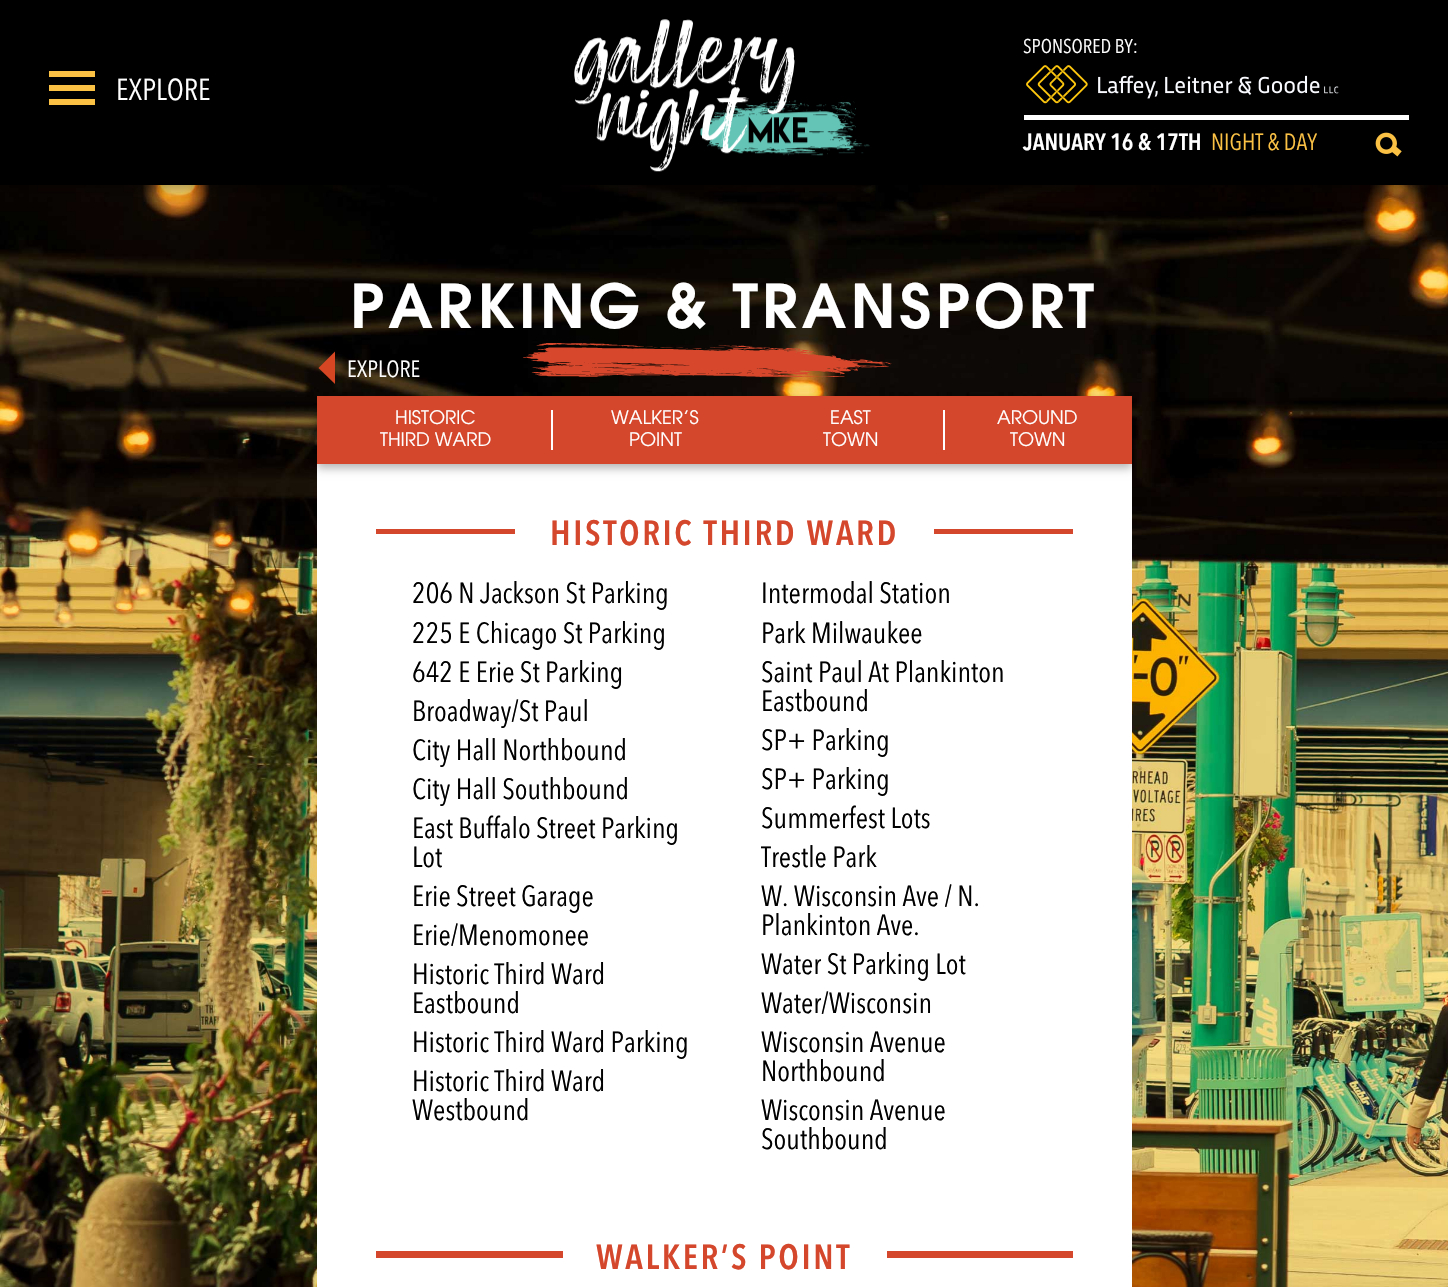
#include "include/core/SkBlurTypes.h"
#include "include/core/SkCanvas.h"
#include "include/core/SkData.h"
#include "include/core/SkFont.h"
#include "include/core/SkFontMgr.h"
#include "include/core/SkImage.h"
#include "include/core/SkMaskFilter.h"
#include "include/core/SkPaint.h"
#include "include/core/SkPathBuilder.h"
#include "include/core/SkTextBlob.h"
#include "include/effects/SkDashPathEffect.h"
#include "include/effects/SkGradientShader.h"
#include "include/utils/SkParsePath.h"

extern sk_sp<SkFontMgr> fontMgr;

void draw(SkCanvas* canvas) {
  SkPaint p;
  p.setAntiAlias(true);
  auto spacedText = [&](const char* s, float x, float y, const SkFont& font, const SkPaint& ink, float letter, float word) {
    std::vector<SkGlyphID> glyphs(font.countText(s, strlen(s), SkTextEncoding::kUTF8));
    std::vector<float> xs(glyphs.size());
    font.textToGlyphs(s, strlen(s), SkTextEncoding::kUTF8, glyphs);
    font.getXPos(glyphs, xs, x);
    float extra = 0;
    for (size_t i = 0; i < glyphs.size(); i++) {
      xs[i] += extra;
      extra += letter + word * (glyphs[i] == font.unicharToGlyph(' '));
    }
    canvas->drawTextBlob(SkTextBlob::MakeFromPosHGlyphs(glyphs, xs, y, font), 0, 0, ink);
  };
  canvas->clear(SK_ColorWHITE);
  canvas->drawImageRect(SkImages::DeferredFromEncodedData(SkData::MakeFromFileName("images/5.png")), SkRect::MakeLTRB(0, 185, 1448, 1287), SkSamplingOptions());
  p.setColor(SkColorSetARGB(77, 0, 0, 0));
  p.setMaskFilter(SkMaskFilter::MakeBlur(kNormal_SkBlurStyle, 6));
  canvas->drawRect(SkRect::MakeLTRB(0, 7, 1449, 191), p);
  p.setMaskFilter(nullptr);
  p.setColor(SK_ColorBLACK);
  canvas->drawRect(SkRect::MakeLTRB(0, 0, 1448, 185), p);
  p.setColor(SkColorSetRGB(250, 193, 69));
  canvas->drawRect(SkRect::MakeLTRB(49, 71, 95, 77), p);
  canvas->drawRect(SkRect::MakeLTRB(49, 85, 95, 91), p);
  canvas->drawRect(SkRect::MakeLTRB(49, 99, 95, 105), p);
  canvas->drawImageRect(SkImages::DeferredFromEncodedData(SkData::MakeFromFileName("images/1.png")), SkRect::MakeLTRB(574, 19, 870, 172), SkSamplingOptions());
  p.setColor(SK_ColorWHITE);
  canvas->drawRect(SkRect::MakeLTRB(1024, 115, 1409, 120), p);
  canvas->drawImageRect(SkImages::DeferredFromEncodedData(SkData::MakeFromFileName("images/2.png")), SkRect::MakeLTRB(1026, 65, 1339, 104), SkSamplingOptions());
  canvas->drawImageRect(SkImages::DeferredFromEncodedData(SkData::MakeFromFileName("images/3.png")), SkRect::MakeLTRB(1375, 132, 1402, 157), SkSamplingOptions());
  canvas->drawImageRect(SkImages::DeferredFromEncodedData(SkData::MakeFromFileName("images/4.png")), SkRect::MakeLTRB(523, 343, 892, 378), SkSamplingOptions());
  p.setColor(SkColorSetRGB(214, 70, 35));
  canvas->drawPath(SkPathBuilder().moveTo(335, 351.5f).lineTo(318.5f, 368).lineTo(335, 384).close().detach(), p);
  p.setColor(SK_ColorWHITE);
  canvas->drawRect(SkRect::MakeLTRB(317, 464, 1132, 1287), p);
  p.setColor(SkColorSetARGB(77, 0, 0, 0));
  p.setMaskFilter(SkMaskFilter::MakeBlur(kNormal_SkBlurStyle, 4.5f));
  canvas->drawRect(SkRect::MakeLTRB(317, 401, 1132, 468), p);
  p.setMaskFilter(nullptr);
  p.setColor(SkColorSetRGB(213, 71, 44));
  canvas->drawRect(SkRect::MakeLTRB(317, 396, 1132, 464), p);
  p.setColor(SK_ColorWHITE);
  canvas->drawRect(SkRect::MakeLTRB(551, 410, 553, 450), p);
  canvas->drawRect(SkRect::MakeLTRB(943, 410, 945, 450), p);
  p.setColor(SkColorSetRGB(213, 71, 44));
  canvas->drawRect(SkRect::MakeLTRB(376, 529, 515, 534), p);
  canvas->drawRect(SkRect::MakeLTRB(934, 529, 1073, 534), p);
  canvas->drawRect(SkRect::MakeLTRB(376, 1251, 563, 1258), p);
  canvas->drawRect(SkRect::MakeLTRB(887, 1251, 1073, 1258), p);
  SkFont font1(fontMgr->matchFamilyStyle("Open Sans", SkFontStyle::Normal()), 30);
  font1.setSubpixel(true);
  p.setColor(SK_ColorWHITE);
  canvas->drawString("EXPLORE", 116, 100, font1, p);
  SkFont font2(fontMgr->matchFamilyStyle("Open Sans", SkFontStyle::Normal()), 19.75f);
  font2.setSubpixel(true);
  canvas->drawString("SPONSORED BY:", 1023, 53, font2, p);
  SkFont font3(fontMgr->matchFamilyStyle("Open Sans", SkFontStyle(600, SkFontStyle::kNormal_Width, SkFontStyle::kUpright_Slant)), 23.25f);
  font3.setSubpixel(true);
  canvas->drawString("JANUARY 16 & 17TH", 1023, 150, font3, p);
  SkFont font4(fontMgr->matchFamilyStyle("Open Sans", SkFontStyle::Normal()), 23.25f);
  font4.setSubpixel(true);
  p.setColor(SkColorSetRGB(250, 193, 69));
  canvas->drawString("NIGHT & DAY", 1211, 150, font4, p);
  SkFont font5(fontMgr->matchFamilyStyle("Poppins", SkFontStyle(600, SkFontStyle::kNormal_Width, SkFontStyle::kUpright_Slant)), 60.25f);
  font5.setSubpixel(true);
  p.setColor(SK_ColorWHITE);
  spacedText("PARKING & TRANSPORT", 350, 328, font5, p, 4.5f, 0);
  canvas->drawString("EXPLORE", 347, 377, font4, p);
  SkFont font6(fontMgr->matchFamilyStyle("Poppins", SkFontStyle::Normal()), 18.5f);
  font6.setSubpixel(true);
  canvas->drawString("HISTORIC", 395, 424, font6, p);
  canvas->drawString("THIRD WARD", 380, 446, font6, p);
  canvas->drawString("WALKER’S", 611, 424, font6, p);
  canvas->drawString("POINT", 629, 446, font6, p);
  canvas->drawString("EAST", 830, 424, font6, p);
  canvas->drawString("TOWN", 823, 446, font6, p);
  canvas->drawString("AROUND", 997, 424, font6, p);
  canvas->drawString("TOWN", 1010, 446, font6, p);
  SkFont font7(fontMgr->matchFamilyStyle("Open Sans", SkFontStyle(600, SkFontStyle::kNormal_Width, SkFontStyle::kUpright_Slant)), 34.75f);
  font7.setSubpixel(true);
  p.setColor(SkColorSetRGB(213, 71, 44));
  spacedText("HISTORIC THIRD WARD", 550, 545, font7, p, 2.6f, 0);
  SkFont font8(fontMgr->matchFamilyStyle("Open Sans", SkFontStyle::Normal()), 29);
  font8.setSubpixel(true);
  p.setColor(SK_ColorBLACK);
  canvas->drawString("206 N Jackson St Parking", 412, 603, font8, p);
  canvas->drawString("Intermodal Station", 761, 603, font8, p);
  canvas->drawString("225 E Chicago St Parking", 412, 643, font8, p);
  canvas->drawString("Park Milwaukee", 761, 643, font8, p);
  canvas->drawString("642 E Erie St Parking", 412, 682, font8, p);
  canvas->drawString("Saint Paul At Plankinton", 761, 682, font8, p);
  canvas->drawString("Eastbound", 761, 711, font8, p);
  canvas->drawString("Broadway/St Paul", 412, 721, font8, p);
  canvas->drawString("City Hall Northbound", 412, 760, font8, p);
  canvas->drawString("SP+ Parking", 761, 750, font8, p);
  canvas->drawString("City Hall Southbound", 412, 799, font8, p);
  canvas->drawString("SP+ Parking", 761, 789, font8, p);
  canvas->drawString("East Buffalo Street Parking", 412, 838, font8, p);
  canvas->drawString("Lot", 412, 867, font8, p);
  canvas->drawString("Summerfest Lots", 761, 828, font8, p);
  canvas->drawString("Trestle Park", 761, 867, font8, p);
  canvas->drawString("Erie Street Garage", 412, 906, font8, p);
  canvas->drawString("W. Wisconsin Ave / N.", 761, 906, font8, p);
  canvas->drawString("Plankinton Ave.", 761, 935, font8, p);
  canvas->drawString("Erie/Menomonee", 412, 945, font8, p);
  canvas->drawString("Historic Third Ward", 412, 984, font8, p);
  canvas->drawString("Eastbound", 412, 1013, font8, p);
  canvas->drawString("Water St Parking Lot", 761, 974, font8, p);
  canvas->drawString("Water/Wisconsin", 761, 1013, font8, p);
  canvas->drawString("Historic Third Ward Parking", 412, 1052, font8, p);
  canvas->drawString("Wisconsin Avenue", 761, 1052, font8, p);
  canvas->drawString("Northbound", 761, 1081, font8, p);
  canvas->drawString("Historic Third Ward", 412, 1091, font8, p);
  canvas->drawString("Westbound", 412, 1120, font8, p);
  canvas->drawString("Wisconsin Avenue", 761, 1120, font8, p);
  canvas->drawString("Southbound", 761, 1149, font8, p);
  p.setColor(SkColorSetRGB(213, 71, 44));
  spacedText("WALKER’S POINT", 596, 1269, font7, p, 2.6f, 0);
}
